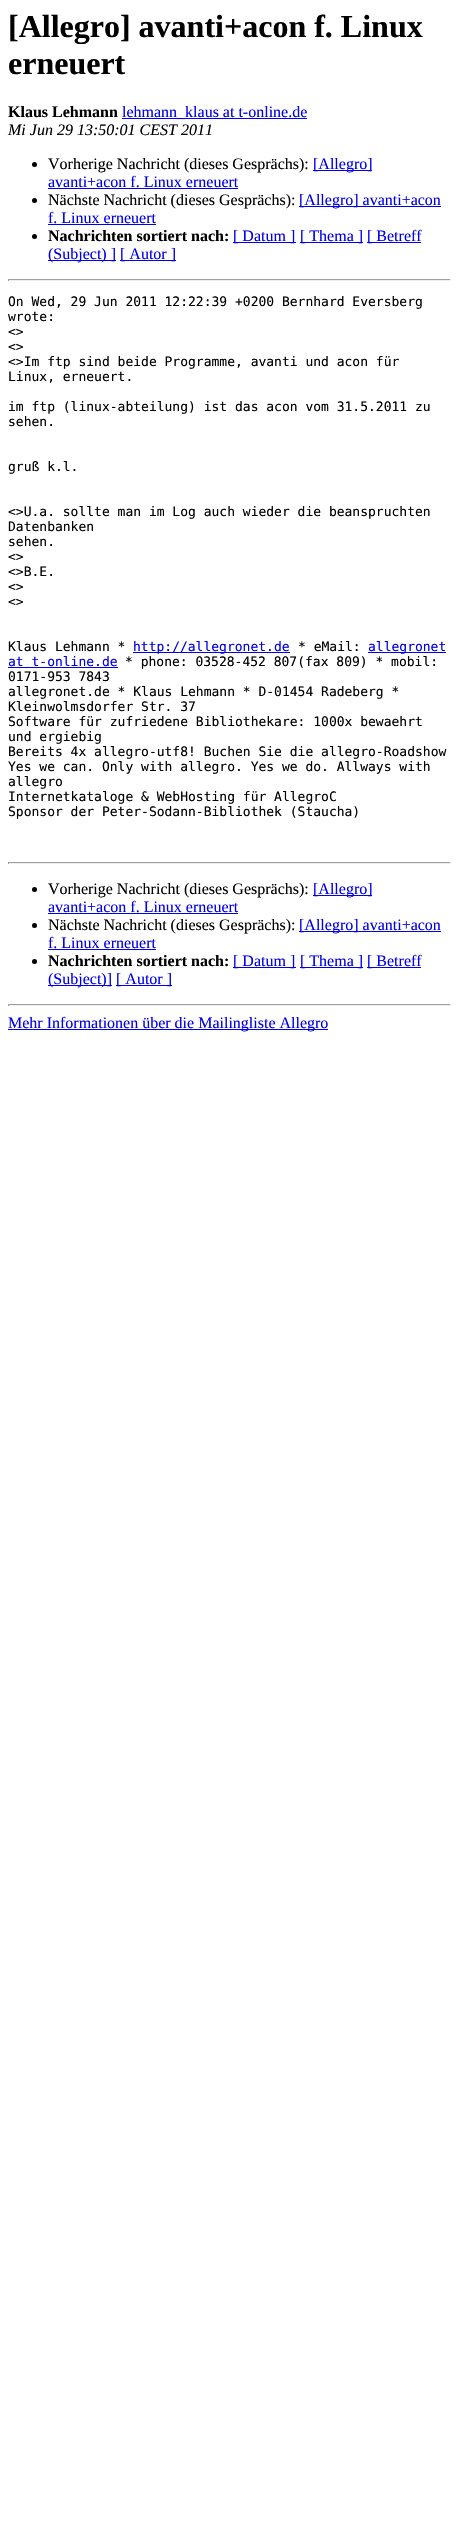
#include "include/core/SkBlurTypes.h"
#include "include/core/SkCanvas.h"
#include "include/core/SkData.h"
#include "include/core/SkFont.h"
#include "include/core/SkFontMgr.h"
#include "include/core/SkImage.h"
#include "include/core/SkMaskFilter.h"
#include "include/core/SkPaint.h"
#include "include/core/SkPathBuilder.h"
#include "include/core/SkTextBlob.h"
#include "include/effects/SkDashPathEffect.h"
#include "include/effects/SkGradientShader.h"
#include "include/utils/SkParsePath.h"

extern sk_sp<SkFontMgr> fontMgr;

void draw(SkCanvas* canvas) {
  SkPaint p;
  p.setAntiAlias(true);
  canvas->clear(SK_ColorWHITE);
  p.setColor(SkColorSetRGB(0, 0, 238));
  canvas->drawRect(SkRect::MakeLTRB(122, 118, 307, 119), p);
  p.setColor(SK_ColorBLACK);
  canvas->drawCircle(34.5f, 164.5f, 2.5f, p);
  p.setColor(SkColorSetRGB(0, 0, 238));
  canvas->drawRect(SkRect::MakeLTRB(313, 170, 372, 171), p);
  canvas->drawRect(SkRect::MakeLTRB(48, 188, 238, 189), p);
  p.setColor(SK_ColorBLACK);
  canvas->drawCircle(34.5f, 200.5f, 2.5f, p);
  p.setColor(SkColorSetRGB(0, 0, 238));
  canvas->drawRect(SkRect::MakeLTRB(299, 206, 441, 207), p);
  canvas->drawRect(SkRect::MakeLTRB(48, 224, 156, 225), p);
  p.setColor(SK_ColorBLACK);
  canvas->drawCircle(34.5f, 236.5f, 2.5f, p);
  p.setColor(SkColorSetRGB(0, 0, 238));
  canvas->drawRect(SkRect::MakeLTRB(233, 242, 296, 243), p);
  canvas->drawRect(SkRect::MakeLTRB(300, 242, 363, 243), p);
  canvas->drawRect(SkRect::MakeLTRB(367, 242, 421, 243), p);
  canvas->drawRect(SkRect::MakeLTRB(48, 260, 116, 261), p);
  canvas->drawRect(SkRect::MakeLTRB(120, 260, 176, 261), p);
  p.setColor(SkColorSetRGB(159, 159, 159));
  canvas->drawRect(SkRect::MakeLTRB(8, 279, 451, 280), p);
  p.setColor(SkColorSetRGB(238, 238, 238));
  canvas->drawRect(SkRect::MakeLTRB(450, 279, 451, 281), p);
  canvas->drawRect(SkRect::MakeLTRB(8, 280, 451, 281), p);
  p.setColor(SkColorSetRGB(159, 159, 159));
  canvas->drawRect(SkRect::MakeLTRB(8, 279, 9, 281), p);
  p.setColor(SkColorSetRGB(0, 0, 238));
  canvas->drawRect(SkRect::MakeLTRB(133, 652, 290, 653), p);
  canvas->drawRect(SkRect::MakeLTRB(368, 652, 446, 653), p);
  canvas->drawRect(SkRect::MakeLTRB(8, 667, 118, 668), p);
  p.setColor(SkColorSetRGB(159, 159, 159));
  canvas->drawRect(SkRect::MakeLTRB(8, 862, 451, 863), p);
  p.setColor(SkColorSetRGB(238, 238, 238));
  canvas->drawRect(SkRect::MakeLTRB(450, 862, 451, 864), p);
  canvas->drawRect(SkRect::MakeLTRB(8, 863, 451, 864), p);
  p.setColor(SkColorSetRGB(159, 159, 159));
  canvas->drawRect(SkRect::MakeLTRB(8, 862, 9, 864), p);
  p.setColor(SK_ColorBLACK);
  canvas->drawCircle(34.5f, 889.5f, 2.5f, p);
  p.setColor(SkColorSetRGB(0, 0, 238));
  canvas->drawRect(SkRect::MakeLTRB(313, 895, 372, 896), p);
  canvas->drawRect(SkRect::MakeLTRB(48, 913, 238, 914), p);
  p.setColor(SK_ColorBLACK);
  canvas->drawCircle(34.5f, 925.5f, 2.5f, p);
  p.setColor(SkColorSetRGB(0, 0, 238));
  canvas->drawRect(SkRect::MakeLTRB(299, 931, 441, 932), p);
  canvas->drawRect(SkRect::MakeLTRB(48, 949, 156, 950), p);
  p.setColor(SK_ColorBLACK);
  canvas->drawCircle(34.5f, 961.5f, 2.5f, p);
  p.setColor(SkColorSetRGB(0, 0, 238));
  canvas->drawRect(SkRect::MakeLTRB(233, 967, 296, 968), p);
  canvas->drawRect(SkRect::MakeLTRB(300, 967, 363, 968), p);
  canvas->drawRect(SkRect::MakeLTRB(367, 967, 421, 968), p);
  canvas->drawRect(SkRect::MakeLTRB(48, 985, 112, 986), p);
  canvas->drawRect(SkRect::MakeLTRB(116, 985, 172, 986), p);
  p.setColor(SkColorSetRGB(159, 159, 159));
  canvas->drawRect(SkRect::MakeLTRB(8, 1004, 451, 1005), p);
  p.setColor(SkColorSetRGB(238, 238, 238));
  canvas->drawRect(SkRect::MakeLTRB(450, 1004, 451, 1006), p);
  canvas->drawRect(SkRect::MakeLTRB(8, 1005, 451, 1006), p);
  p.setColor(SkColorSetRGB(159, 159, 159));
  canvas->drawRect(SkRect::MakeLTRB(8, 1004, 9, 1006), p);
  p.setColor(SkColorSetRGB(0, 0, 238));
  canvas->drawRect(SkRect::MakeLTRB(8, 1029, 328, 1030), p);
  SkFont font1(fontMgr->matchFamilyStyle("Liberation Serif", SkFontStyle::Bold()), 32);
  font1.setSubpixel(true);
  p.setColor(SK_ColorBLACK);
  canvas->drawString("[Allegro] avanti+acon f. Linux", 8, 37, font1, p);
  canvas->drawString("erneuert", 8, 74, font1, p);
  SkFont font2(fontMgr->matchFamilyStyle("Liberation Serif", SkFontStyle::Bold()), 16);
  font2.setSubpixel(true);
  canvas->drawString("Klaus Lehmann", 8, 117, font2, p);
  SkFont font3(fontMgr->matchFamilyStyle("Liberation Serif", SkFontStyle::Normal()), 16);
  font3.setSubpixel(true);
  p.setColor(SkColorSetRGB(0, 0, 238));
  canvas->drawString("lehmann_klaus at t-online.de", 122, 117, font3, p);
  SkFont font4(fontMgr->matchFamilyStyle("Liberation Serif", SkFontStyle::Italic()), 16);
  font4.setSubpixel(true);
  p.setColor(SK_ColorBLACK);
  canvas->drawString("Mi Jun 29 13:50:01 CEST 2011", 8, 135, font4, p);
  canvas->drawString("Vorherige Nachricht (dieses Gesprächs):", 48, 169, font3, p);
  p.setColor(SkColorSetRGB(0, 0, 238));
  canvas->drawString("[Allegro]", 313, 169, font3, p);
  canvas->drawString("avanti+acon f. Linux erneuert", 48, 187, font3, p);
  p.setColor(SK_ColorBLACK);
  canvas->drawString("Nächste Nachricht (dieses Gesprächs):", 48, 205, font3, p);
  p.setColor(SkColorSetRGB(0, 0, 238));
  canvas->drawString("[Allegro] avanti+acon", 299, 205, font3, p);
  canvas->drawString("f. Linux erneuert", 48, 223, font3, p);
  p.setColor(SK_ColorBLACK);
  canvas->drawString("Nachrichten sortiert nach:", 48, 241, font2, p);
  p.setColor(SkColorSetRGB(0, 0, 238));
  canvas->drawString("[ Datum ]", 233, 241, font3, p);
  canvas->drawString("[ Thema ]", 300, 241, font3, p);
  canvas->drawString("[ Betreff", 367, 241, font3, p);
  canvas->drawString("(Subject) ]", 48, 259, font3, p);
  canvas->drawString("[ Autor ]", 120, 259, font3, p);
  SkFont font5(fontMgr->matchFamilyStyle("DejaVu Sans Mono", SkFontStyle::Normal()), 13);
  font5.setSubpixel(true);
  p.setColor(SK_ColorBLACK);
  canvas->drawString("On Wed, 29 Jun 2011 12:22:39 +0200 Bernhard Eversberg", 8, 306, font5, p);
  canvas->drawString("wrote:", 8, 321, font5, p);
  canvas->drawString("<>", 8, 336, font5, p);
  canvas->drawString("<>", 8, 351, font5, p);
  canvas->drawString("<>Im ftp sind beide Programme, avanti und acon für", 8, 366, font5, p);
  canvas->drawString("Linux, erneuert.", 8, 381, font5, p);
  canvas->drawString("im ftp (linux-abteilung) ist das acon vom 31.5.2011 zu", 8, 411, font5, p);
  canvas->drawString("sehen.", 8, 426, font5, p);
  canvas->drawString("gruß k.l.", 8, 471, font5, p);
  canvas->drawString("<>U.a. sollte man im Log auch wieder die beanspruchten", 8, 516, font5, p);
  canvas->drawString("Datenbanken", 8, 531, font5, p);
  canvas->drawString("sehen.", 8, 546, font5, p);
  canvas->drawString("<>", 8, 561, font5, p);
  canvas->drawString("<>B.E.", 8, 576, font5, p);
  canvas->drawString("<>", 8, 591, font5, p);
  canvas->drawString("<>", 8, 606, font5, p);
  canvas->drawString("Klaus Lehmann *", 8, 651, font5, p);
  p.setColor(SkColorSetRGB(0, 0, 238));
  canvas->drawString("http://allegronet.de", 133, 651, font5, p);
  p.setColor(SK_ColorBLACK);
  canvas->drawString("* eMail:", 298, 651, font5, p);
  p.setColor(SkColorSetRGB(0, 0, 238));
  canvas->drawString("allegronet", 368, 651, font5, p);
  canvas->drawString("at t-online.de", 8, 666, font5, p);
  p.setColor(SK_ColorBLACK);
  canvas->drawString("* phone: 03528-452 807(fax 809) * mobil:", 125, 666, font5, p);
  canvas->drawString("0171-953 7843", 8, 681, font5, p);
  canvas->drawString("allegronet.de * Klaus Lehmann * D-01454 Radeberg *", 8, 696, font5, p);
  canvas->drawString("Kleinwolmsdorfer Str. 37", 8, 711, font5, p);
  canvas->drawString("Software für zufriedene Bibliothekare: 1000x bewaehrt", 8, 726, font5, p);
  canvas->drawString("und ergiebig", 8, 741, font5, p);
  canvas->drawString("Bereits 4x allegro-utf8! Buchen Sie die allegro-Roadshow", 8, 756, font5, p);
  canvas->drawString("Yes we can. Only with allegro. Yes we do. Allways with", 8, 771, font5, p);
  canvas->drawString("allegro", 8, 786, font5, p);
  canvas->drawString("Internetkataloge & WebHosting für AllegroC", 8, 801, font5, p);
  canvas->drawString("Sponsor der Peter-Sodann-Bibliothek (Staucha)", 8, 816, font5, p);
  canvas->drawString("Vorherige Nachricht (dieses Gesprächs):", 48, 894, font3, p);
  p.setColor(SkColorSetRGB(0, 0, 238));
  canvas->drawString("[Allegro]", 313, 894, font3, p);
  canvas->drawString("avanti+acon f. Linux erneuert", 48, 912, font3, p);
  p.setColor(SK_ColorBLACK);
  canvas->drawString("Nächste Nachricht (dieses Gesprächs):", 48, 930, font3, p);
  p.setColor(SkColorSetRGB(0, 0, 238));
  canvas->drawString("[Allegro] avanti+acon", 299, 930, font3, p);
  canvas->drawString("f. Linux erneuert", 48, 948, font3, p);
  p.setColor(SK_ColorBLACK);
  canvas->drawString("Nachrichten sortiert nach:", 48, 966, font2, p);
  p.setColor(SkColorSetRGB(0, 0, 238));
  canvas->drawString("[ Datum ]", 233, 966, font3, p);
  canvas->drawString("[ Thema ]", 300, 966, font3, p);
  canvas->drawString("[ Betreff", 367, 966, font3, p);
  canvas->drawString("(Subject)]", 48, 984, font3, p);
  canvas->drawString("[ Autor ]", 116, 984, font3, p);
  canvas->drawString("Mehr Informationen über die Mailingliste Allegro", 8, 1028, font3, p);
}
